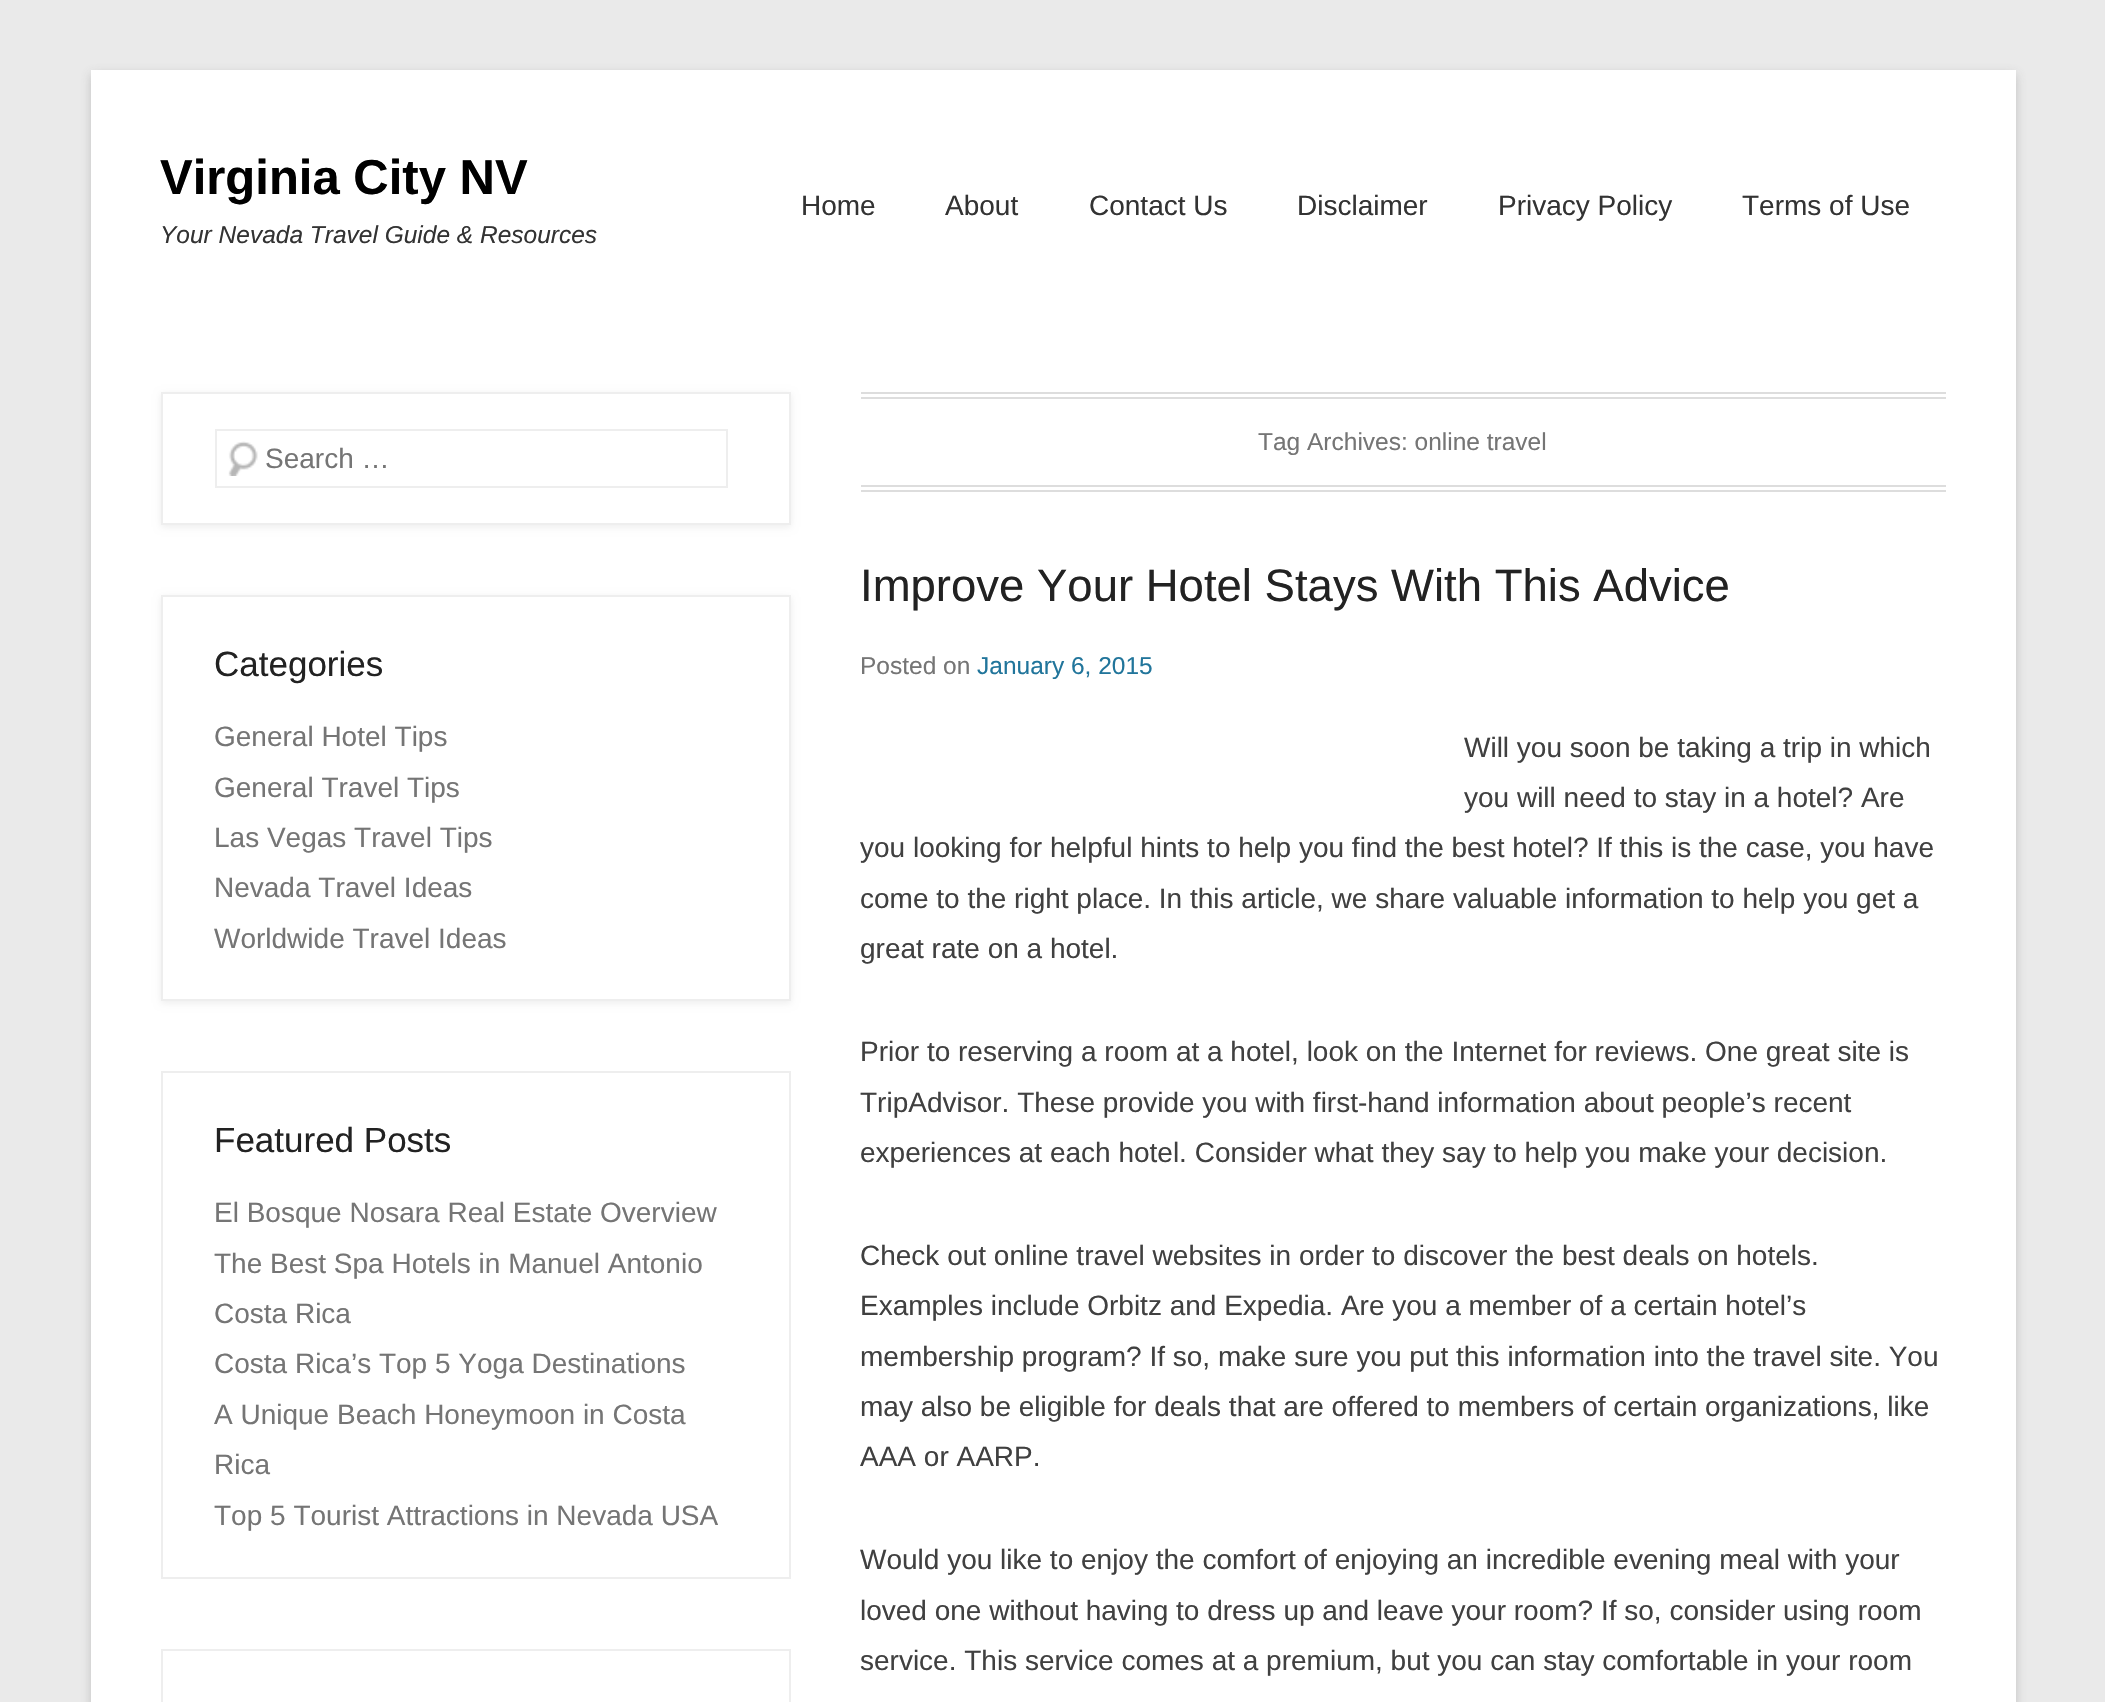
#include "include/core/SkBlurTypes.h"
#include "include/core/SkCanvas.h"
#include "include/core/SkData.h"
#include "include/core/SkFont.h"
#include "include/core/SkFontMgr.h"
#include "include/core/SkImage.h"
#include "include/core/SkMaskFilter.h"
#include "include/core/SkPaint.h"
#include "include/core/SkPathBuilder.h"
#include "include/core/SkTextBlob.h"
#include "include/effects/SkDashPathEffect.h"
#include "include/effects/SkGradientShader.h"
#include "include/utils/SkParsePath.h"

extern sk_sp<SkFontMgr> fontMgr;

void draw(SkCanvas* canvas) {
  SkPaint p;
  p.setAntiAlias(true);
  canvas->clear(SkColorSetRGB(234, 234, 234));
  p.setColor(SkColorSetARGB(77, 100, 100, 100));
  p.setMaskFilter(SkMaskFilter::MakeBlur(kNormal_SkBlurStyle, 5));
  canvas->drawRect(SkRect::MakeLTRB(91, 74, 2016, 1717), p);
  p.setMaskFilter(nullptr);
  p.setColor(SK_ColorWHITE);
  canvas->drawRect(SkRect::MakeLTRB(91, 70, 2016, 1702), p);
  canvas->save();
  canvas->clipPath(SkPathBuilder(SkPathFillType::kEvenOdd).moveTo(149, 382).lineTo(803, 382).lineTo(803, 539).lineTo(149, 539).close().moveTo(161, 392).lineTo(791, 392).lineTo(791, 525).lineTo(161, 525).close().detach(), true);
  p.setColor(SkColorSetARGB(18, 0, 0, 0));
  p.setMaskFilter(SkMaskFilter::MakeBlur(kNormal_SkBlurStyle, 3.5f));
  canvas->drawRect(SkRect::MakeLTRB(161, 394, 791, 527), p);
  p.setMaskFilter(nullptr);
  canvas->restore();
  p.setStyle(SkPaint::kStroke_Style);
  p.setStrokeWidth(2);
  p.setColor(SkColorSetRGB(238, 238, 238));
  canvas->drawRect(SkRect::MakeLTRB(162, 393, 790, 524), p);
  canvas->drawImageRect(SkImages::DeferredFromEncodedData(SkData::MakeFromFileName("images/1.png")), SkRect::MakeLTRB(228, 441, 258, 476), SkSamplingOptions());
  canvas->drawRect(SkRect::MakeLTRB(216, 430, 727, 487), p);
  canvas->save();
  canvas->clipPath(SkPathBuilder(SkPathFillType::kEvenOdd).moveTo(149, 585).lineTo(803, 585).lineTo(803, 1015).lineTo(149, 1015).close().moveTo(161, 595).lineTo(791, 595).lineTo(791, 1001).lineTo(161, 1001).close().detach(), true);
  p.setStyle(SkPaint::kFill_Style);
  p.setColor(SkColorSetARGB(18, 0, 0, 0));
  p.setMaskFilter(SkMaskFilter::MakeBlur(kNormal_SkBlurStyle, 3.5f));
  canvas->drawRect(SkRect::MakeLTRB(161, 597, 791, 1003), p);
  p.setMaskFilter(nullptr);
  canvas->restore();
  p.setStyle(SkPaint::kStroke_Style);
  p.setColor(SkColorSetRGB(238, 238, 238));
  canvas->drawRect(SkRect::MakeLTRB(162, 596, 790, 1000), p);
  canvas->drawRect(SkRect::MakeLTRB(162, 1072, 790, 1578), p);
  canvas->drawRect(SkRect::MakeLTRB(162, 1650, 790, 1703), p);
  p.setStyle(SkPaint::kFill_Style);
  p.setColor(SkColorSetRGB(221, 221, 221));
  canvas->drawRect(SkRect::MakeLTRB(861, 392, 1946, 394), p);
  canvas->drawRect(SkRect::MakeLTRB(861, 397, 1946, 399), p);
  canvas->drawRect(SkRect::MakeLTRB(861, 485, 1946, 487), p);
  canvas->drawRect(SkRect::MakeLTRB(861, 490, 1946, 492), p);
  SkFont font1(fontMgr->matchFamilyStyle("Liberation Sans", SkFontStyle::Bold()), 49);
  font1.setSubpixel(true);
  p.setColor(SK_ColorBLACK);
  canvas->drawString("Virginia City NV", 160, 194, font1, p);
  SkFont font2(fontMgr->matchFamilyStyle("Liberation Sans", SkFontStyle::Italic()), 24.5f);
  font2.setSubpixel(true);
  p.setColor(SkColorSetRGB(51, 51, 51));
  canvas->drawString("Your Nevada Travel Guide & Resources", 160, 243, font2, p);
  SkFont font3(fontMgr->matchFamilyStyle("Liberation Sans", SkFontStyle::Normal()), 28);
  font3.setSubpixel(true);
  canvas->drawString("Home", 801, 215, font3, p);
  canvas->drawString("About", 945, 215, font3, p);
  canvas->drawString("Contact Us", 1089, 215, font3, p);
  canvas->drawString("Disclaimer", 1297, 215, font3, p);
  canvas->drawString("Privacy Policy", 1498, 215, font3, p);
  canvas->drawString("Terms of Use", 1742, 215, font3, p);
  p.setColor(SkColorSetRGB(117, 117, 117));
  canvas->drawString("Search …", 265, 468, font3, p);
  SkFont font4(fontMgr->matchFamilyStyle("Liberation Sans", SkFontStyle::Normal()), 35);
  font4.setSubpixel(true);
  p.setColor(SkColorSetRGB(34, 34, 34));
  canvas->drawString("Categories", 214, 676, font4, p);
  p.setColor(SkColorSetRGB(117, 117, 117));
  canvas->drawString("General Hotel Tips", 214, 746, font3, p);
  canvas->drawString("General Travel Tips", 214, 797, font3, p);
  canvas->drawString("Las Vegas Travel Tips", 214, 847, font3, p);
  canvas->drawString("Nevada Travel Ideas", 214, 897, font3, p);
  canvas->drawString("Worldwide Travel Ideas", 214, 948, font3, p);
  p.setColor(SkColorSetRGB(34, 34, 34));
  canvas->drawString("Featured Posts", 214, 1152, font4, p);
  p.setColor(SkColorSetRGB(117, 117, 117));
  canvas->drawString("El Bosque Nosara Real Estate Overview", 214, 1222, font3, p);
  canvas->drawString("The Best Spa Hotels in Manuel Antonio", 214, 1273, font3, p);
  canvas->drawString("Costa Rica", 214, 1323, font3, p);
  canvas->drawString("Costa Rica’s Top 5 Yoga Destinations", 214, 1373, font3, p);
  canvas->drawString("A Unique Beach Honeymoon in Costa", 214, 1424, font3, p);
  canvas->drawString("Rica", 214, 1474, font3, p);
  canvas->drawString("Top 5 Tourist Attractions in Nevada USA", 214, 1525, font3, p);
  SkFont font5(fontMgr->matchFamilyStyle("Liberation Sans", SkFontStyle::Normal()), 24.5f);
  font5.setSubpixel(true);
  canvas->drawString("Tag Archives: online travel", 1258, 450, font5, p);
  SkFont font6(fontMgr->matchFamilyStyle("Liberation Sans", SkFontStyle::Normal()), 45.5f);
  font6.setSubpixel(true);
  p.setColor(SkColorSetRGB(34, 34, 34));
  canvas->drawString("Improve Your Hotel Stays With This Advice", 860, 601, font6, p);
  p.setColor(SkColorSetRGB(117, 117, 117));
  canvas->drawString("Posted on", 860, 674, font5, p);
  p.setColor(SkColorSetRGB(33, 117, 155));
  canvas->drawString("January 6, 2015", 977, 674, font5, p);
  p.setColor(SkColorSetRGB(64, 64, 64));
  canvas->drawString("Will you soon be taking a trip in which", 1464, 757, font3, p);
  canvas->drawString("you will need to stay in a hotel? Are", 1464, 807, font3, p);
  canvas->drawString("you looking for helpful hints to help you find the best hotel? If this is the case, you have", 860, 857, font3, p);
  canvas->drawString("come to the right place. In this article, we share valuable information to help you get a", 860, 908, font3, p);
  canvas->drawString("great rate on a hotel.", 860, 958, font3, p);
  canvas->drawString("Prior to reserving a room at a hotel, look on the Internet for reviews. One great site is", 860, 1061, font3, p);
  canvas->drawString("TripAdvisor. These provide you with first-hand information about people’s recent", 860, 1112, font3, p);
  canvas->drawString("experiences at each hotel. Consider what they say to help you make your decision.", 860, 1162, font3, p);
  canvas->drawString("Check out online travel websites in order to discover the best deals on hotels.", 860, 1265, font3, p);
  canvas->drawString("Examples include Orbitz and Expedia. Are you a member of a certain hotel’s", 860, 1315, font3, p);
  canvas->drawString("membership program? If so, make sure you put this information into the travel site. You", 860, 1366, font3, p);
  canvas->drawString("may also be eligible for deals that are offered to members of certain organizations, like", 860, 1416, font3, p);
  canvas->drawString("AAA or AARP.", 860, 1466, font3, p);
  canvas->drawString("Would you like to enjoy the comfort of enjoying an incredible evening meal with your", 860, 1569, font3, p);
  canvas->drawString("loved one without having to dress up and leave your room? If so, consider using room", 860, 1620, font3, p);
  canvas->drawString("service. This service comes at a premium, but you can stay comfortable in your room", 860, 1670, font3, p);
}
